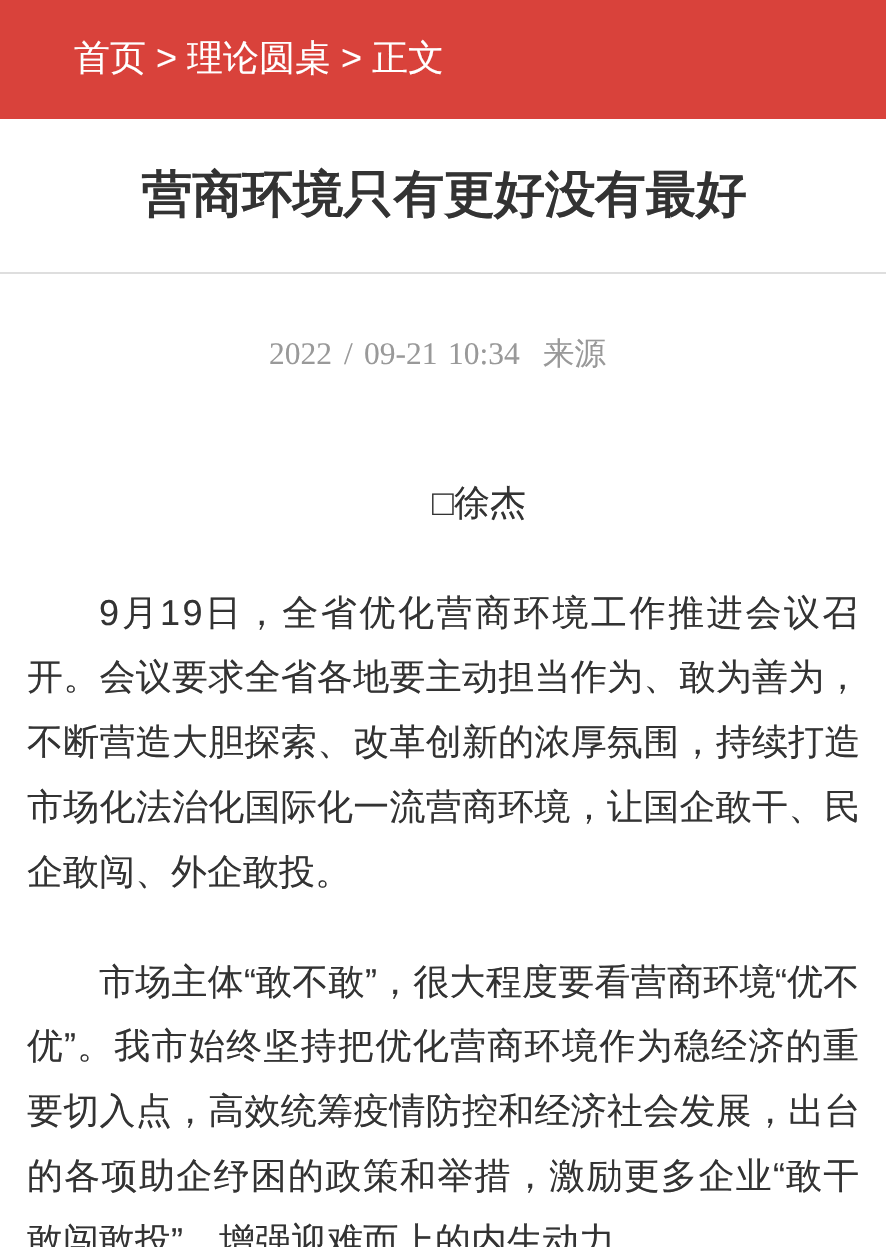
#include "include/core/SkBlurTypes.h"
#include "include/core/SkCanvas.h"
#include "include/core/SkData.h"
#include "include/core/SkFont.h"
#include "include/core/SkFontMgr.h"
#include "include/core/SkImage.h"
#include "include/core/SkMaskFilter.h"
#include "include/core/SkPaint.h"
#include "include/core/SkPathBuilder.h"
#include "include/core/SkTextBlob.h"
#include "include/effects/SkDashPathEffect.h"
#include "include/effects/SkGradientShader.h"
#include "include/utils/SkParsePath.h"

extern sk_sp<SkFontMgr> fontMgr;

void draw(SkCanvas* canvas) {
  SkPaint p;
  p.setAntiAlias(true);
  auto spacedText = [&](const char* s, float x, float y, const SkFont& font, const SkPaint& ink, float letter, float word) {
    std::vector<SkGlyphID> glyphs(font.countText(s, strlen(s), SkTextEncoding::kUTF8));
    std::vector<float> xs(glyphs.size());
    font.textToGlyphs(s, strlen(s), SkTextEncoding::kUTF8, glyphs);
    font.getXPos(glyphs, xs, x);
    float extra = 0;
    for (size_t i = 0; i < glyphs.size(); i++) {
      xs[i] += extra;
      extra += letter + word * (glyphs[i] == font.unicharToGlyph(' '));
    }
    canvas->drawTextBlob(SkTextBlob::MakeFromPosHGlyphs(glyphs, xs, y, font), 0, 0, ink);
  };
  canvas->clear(SK_ColorWHITE);
  p.setColor(SkColorSetRGB(217, 66, 59));
  canvas->drawRect(SkRect::MakeLTRB(0, 0, 886, 119), p);
  p.setColor(SkColorSetRGB(222, 222, 222));
  canvas->drawRect(SkRect::MakeLTRB(0, 272, 886, 274), p);
  SkFont font1(fontMgr->matchFamilyStyle("WenQuanYi Zen Hei", SkFontStyle(500, SkFontStyle::kNormal_Width, SkFontStyle::kUpright_Slant)), 36);
  font1.setSubpixel(true);
  p.setColor(SK_ColorWHITE);
  canvas->drawString("首页", 74, 70, font1, p);
  SkFont font2(fontMgr->matchFamilyStyle("Liberation Sans", SkFontStyle::Normal()), 36);
  font2.setSubpixel(true);
  canvas->drawString(">", 156, 70, font2, p);
  canvas->drawString("理论圆桌", 187, 70, font1, p);
  canvas->drawString(">", 341, 70, font2, p);
  canvas->drawString("正文", 372, 70, font1, p);
  SkFont font3(fontMgr->matchFamilyStyle("WenQuanYi Zen Hei", SkFontStyle::Bold()), 50.4f);
  font3.setSubpixel(true);
  p.setColor(SkColorSetRGB(51, 51, 51));
  canvas->drawString("营商环境只有更好没有最好", 141, 212, font3, p);
  SkFont font4(fontMgr->matchFamilyStyle("Liberation Serif", SkFontStyle::Normal()), 31.5f);
  font4.setSubpixel(true);
  p.setColor(SkColorSetRGB(153, 153, 153));
  canvas->drawString("2022", 269, 364, font4, p);
  canvas->drawString("/", 344, 364, font4, p);
  p.setColor(SK_ColorWHITE);
  canvas->drawRect(SkRect::MakeLTRB(343, 363, 344, 365), p);
  p.setColor(SkColorSetRGB(153, 153, 153));
  canvas->drawString("09-21", 364, 364, font4, p);
  canvas->drawString("10:34", 448, 364, font4, p);
  SkFont font5(fontMgr->matchFamilyStyle("WenQuanYi Zen Hei", SkFontStyle(500, SkFontStyle::kNormal_Width, SkFontStyle::kUpright_Slant)), 31.5f);
  font5.setSubpixel(true);
  canvas->drawString("来源", 543, 364, font5, p);
  p.setColor(SkColorSetRGB(51, 51, 51));
  canvas->drawString("□", 432, 515, font2, p);
  canvas->drawString("徐杰", 454, 515, font1, p);
  spacedText("9", 99, 625, font2, p, 2.6f, 0);
  spacedText("月", 122, 625, font1, p, 2.6f, 0);
  spacedText("19", 160, 625, font2, p, 2.6f, 0);
  spacedText("日，全省优化营商环境工作推进会议召", 205, 625, font1, p, 2.6f, 0);
  spacedText("开。会议要求全省各地要主动担当作为、敢为善为，", 27, 689, font1, p, 0.25f, 0);
  spacedText("不断营造大胆探索、改革创新的浓厚氛围，持续打造", 27, 754, font1, p, 0.25f, 0);
  spacedText("市场化法治化国际化一流营商环境，让国企敢干、民", 27, 819, font1, p, 0.25f, 0);
  canvas->drawString("企敢闯、外企敢投。", 27, 884, font1, p);
  spacedText("市场主体", 99, 994, font1, p, 0.25f, 0);
  spacedText("“", 244, 994, font2, p, 0.25f, 0);
  spacedText("敢不敢", 256, 994, font1, p, 0.25f, 0);
  spacedText("”", 365, 994, font2, p, 0.25f, 0);
  spacedText("，很大程度要看营商环境", 377, 994, font1, p, 0.25f, 0);
  spacedText("“", 775, 994, font2, p, 0.25f, 0);
  spacedText("优不", 787, 994, font1, p, 0.25f, 0);
  spacedText("优", 27, 1058, font1, p, 1.3f, 0);
  spacedText("”", 64, 1058, font2, p, 1.3f, 0);
  spacedText("。我市始终坚持把优化营商环境作为稳经济的重", 77, 1058, font1, p, 1.3f, 0);
  spacedText("要切入点，高效统筹疫情防控和经济社会发展，出台", 27, 1123, font1, p, 0.25f, 0);
  spacedText("的各项助企纾困的政策和举措，激励更多企业", 27, 1188, font1, p, 1.3f, 0);
  spacedText("“", 773, 1188, font2, p, 1.3f, 0);
  spacedText("敢干", 786, 1188, font1, p, 1.3f, 0);
  canvas->drawString("敢闯敢投", 27, 1253, font1, p);
  canvas->drawString("”", 171, 1253, font2, p);
  canvas->drawString("增强迎难而上的内生动力", 219, 1253, font1, p);
}
